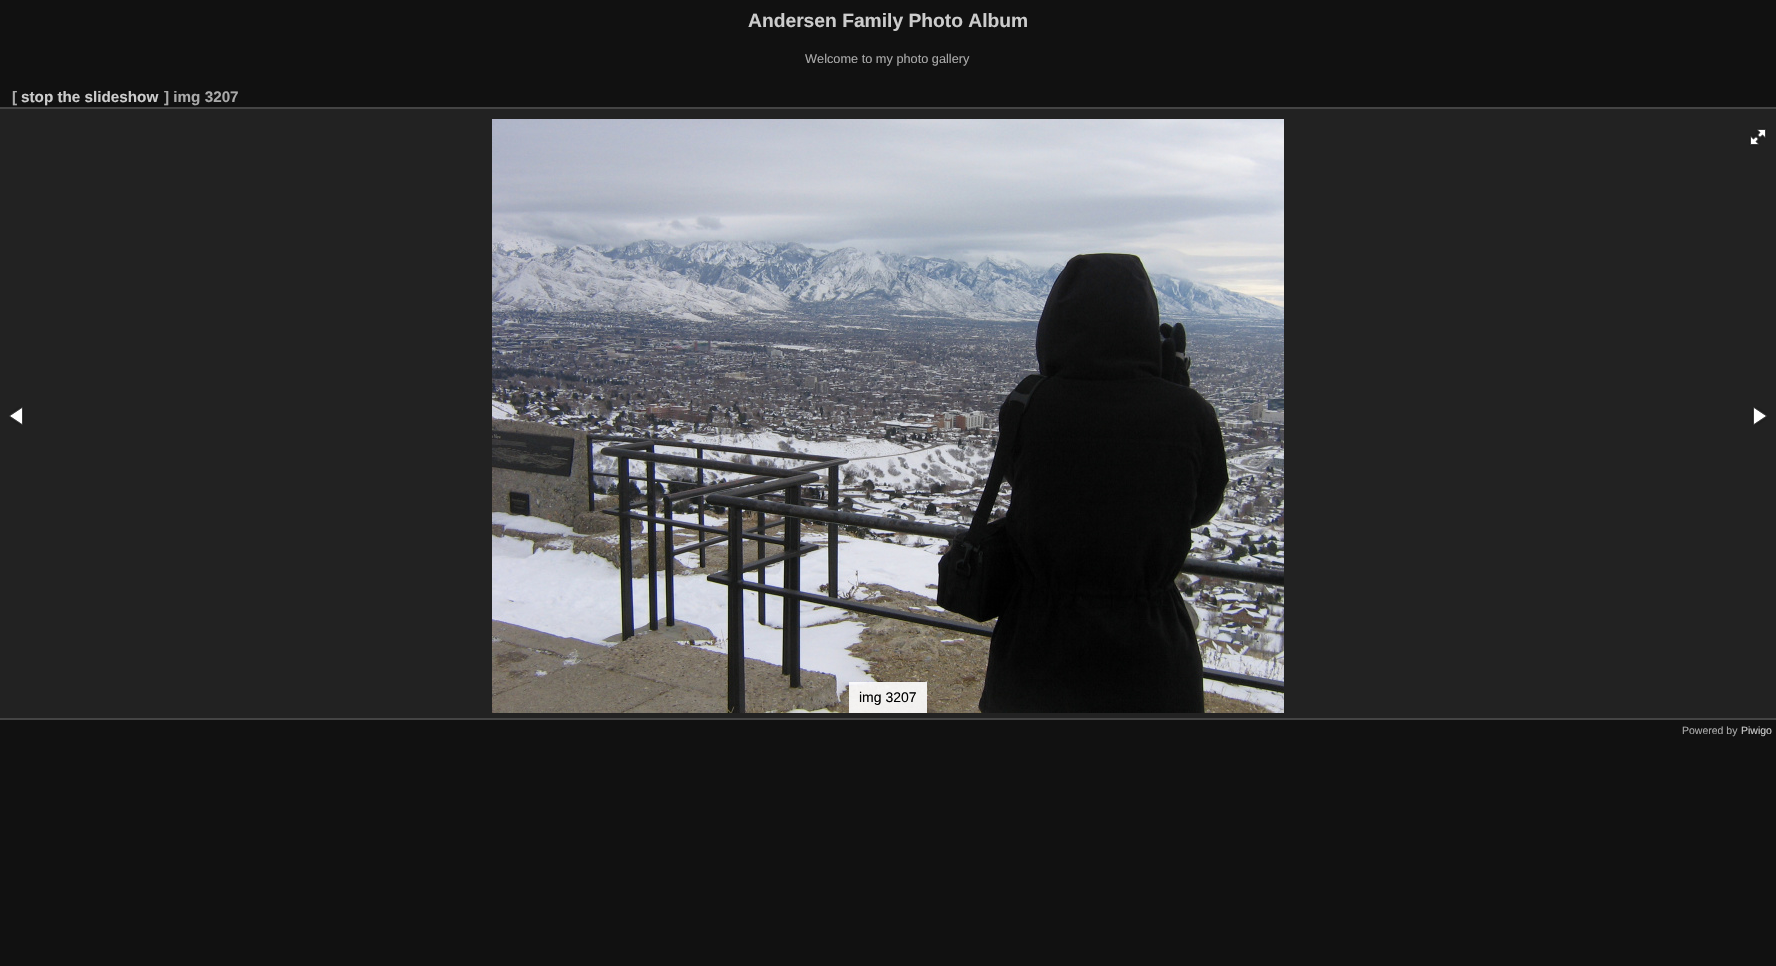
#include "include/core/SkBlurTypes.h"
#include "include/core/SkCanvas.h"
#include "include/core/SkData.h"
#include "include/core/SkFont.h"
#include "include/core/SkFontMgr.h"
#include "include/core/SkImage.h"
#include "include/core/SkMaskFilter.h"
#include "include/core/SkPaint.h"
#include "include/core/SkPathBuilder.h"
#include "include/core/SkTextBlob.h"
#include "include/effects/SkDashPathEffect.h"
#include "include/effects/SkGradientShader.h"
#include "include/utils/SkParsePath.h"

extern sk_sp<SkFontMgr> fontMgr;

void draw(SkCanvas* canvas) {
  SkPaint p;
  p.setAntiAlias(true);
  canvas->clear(SkColorSetRGB(17, 17, 17));
  p.setColor(SkColorSetRGB(68, 68, 68));
  canvas->drawRect(SkRect::MakeLTRB(0, 107, 1776, 109), p);
  p.setColor(SkColorSetRGB(34, 34, 34));
  canvas->drawRect(SkRect::MakeLTRB(0, 109, 1776, 718), p);
  p.setColor(SkColorSetRGB(68, 68, 68));
  canvas->drawRect(SkRect::MakeLTRB(0, 718, 1776, 720), p);
  canvas->drawImageRect(SkImages::DeferredFromEncodedData(SkData::MakeFromFileName("images/1.png")), SkRect::MakeLTRB(1749, 128, 1767, 146), SkSamplingOptions());
  canvas->drawImageRect(SkImages::DeferredFromEncodedData(SkData::MakeFromFileName("images/2.png")), SkRect::MakeLTRB(9, 407, 24, 425), SkSamplingOptions());
  canvas->drawImageRect(SkImages::DeferredFromEncodedData(SkData::MakeFromFileName("images/3.png")), SkRect::MakeLTRB(1752, 407, 1767, 425), SkSamplingOptions());
  canvas->drawImageRect(SkImages::DeferredFromEncodedData(SkData::MakeFromFileName("images/4.png")), SkRect::MakeLTRB(492, 119, 1284, 713), SkSamplingOptions());
  p.setColor(SkColorSetARGB(230, 255, 255, 255));
  canvas->drawRect(SkRect::MakeLTRB(849, 682, 927, 713), p);
  SkFont font1(fontMgr->matchFamilyStyle("Liberation Sans", SkFontStyle::Bold()), 19.25f);
  font1.setSubpixel(true);
  p.setColor(SkColorSetRGB(204, 204, 204));
  canvas->drawString("Andersen Family Photo Album", 748, 27, font1, p);
  SkFont font2(fontMgr->matchFamilyStyle("Liberation Sans", SkFontStyle::Normal()), 12.75f);
  font2.setSubpixel(true);
  p.setColor(SkColorSetRGB(170, 170, 170));
  canvas->drawString("Welcome to my photo gallery", 805, 63, font2, p);
  SkFont font3(fontMgr->matchFamilyStyle("Liberation Sans", SkFontStyle::Bold()), 15.25f);
  font3.setSubpixel(true);
  canvas->drawString("[", 12, 102, font3, p);
  p.setColor(SkColorSetRGB(204, 204, 204));
  canvas->drawString("stop the slideshow", 21, 102, font3, p);
  p.setColor(SkColorSetRGB(170, 170, 170));
  canvas->drawString("] img 3207", 164, 102, font3, p);
  SkFont font4(fontMgr->matchFamilyStyle("Liberation Sans", SkFontStyle::Normal()), 14);
  font4.setSubpixel(true);
  p.setColor(SK_ColorBLACK);
  canvas->drawString("img 3207", 859, 702, font4, p);
  SkFont font5(fontMgr->matchFamilyStyle("Liberation Sans", SkFontStyle::Normal()), 10.5f);
  font5.setSubpixel(true);
  p.setColor(SkColorSetRGB(170, 170, 170));
  canvas->drawString("Powered by", 1682, 734, font5, p);
  p.setColor(SkColorSetRGB(204, 204, 204));
  canvas->drawString("Piwigo", 1741, 734, font5, p);
}
